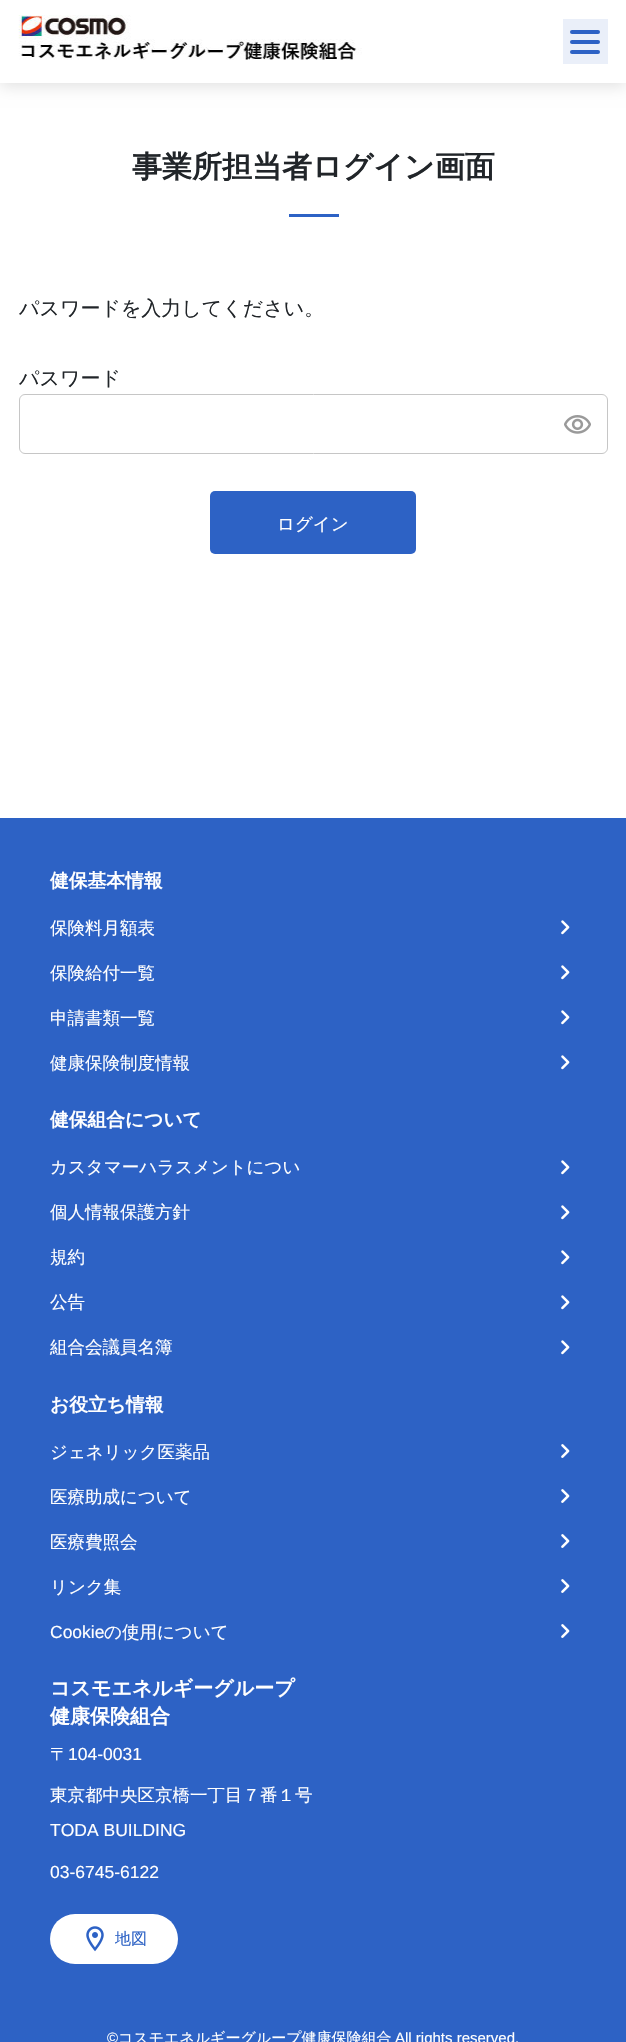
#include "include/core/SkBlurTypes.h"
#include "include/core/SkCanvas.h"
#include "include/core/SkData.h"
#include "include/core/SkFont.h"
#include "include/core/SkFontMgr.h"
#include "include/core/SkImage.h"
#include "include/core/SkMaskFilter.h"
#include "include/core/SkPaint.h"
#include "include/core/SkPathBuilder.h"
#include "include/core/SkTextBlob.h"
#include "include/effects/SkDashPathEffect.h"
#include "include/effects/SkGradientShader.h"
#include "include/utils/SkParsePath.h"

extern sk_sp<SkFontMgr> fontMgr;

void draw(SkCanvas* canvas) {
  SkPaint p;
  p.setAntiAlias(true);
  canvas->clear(SK_ColorWHITE);
  canvas->save();
  canvas->clipPath(SkPathBuilder(SkPathFillType::kEvenOdd).moveTo(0, 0).lineTo(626, 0).lineTo(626, 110).lineTo(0, 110).close().moveTo(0, 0).lineTo(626, 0).lineTo(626, 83).lineTo(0, 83).close().detach(), true);
  p.setColor(SkColorSetARGB(31, 0, 0, 0));
  p.setMaskFilter(SkMaskFilter::MakeBlur(kNormal_SkBlurStyle, 7.5f));
  canvas->drawRect(SkRect::MakeLTRB(0, 4, 626, 86), p);
  p.setMaskFilter(nullptr);
  canvas->restore();
  canvas->drawImageRect(SkImages::DeferredFromEncodedData(SkData::MakeFromFileName("images/1.png")), SkRect::MakeLTRB(18, 15, 362, 60), SkSamplingOptions());
  p.setColor(SkColorSetRGB(234, 239, 249));
  canvas->drawRect(SkRect::MakeLTRB(563, 19, 608, 64), p);
  p.setColor(SkColorSetRGB(45, 98, 197));
  canvas->drawRoundRect(SkRect::MakeLTRB(570, 30, 600, 34), 2, 2, p);
  canvas->drawRoundRect(SkRect::MakeLTRB(570, 40, 600, 44), 2, 2, p);
  canvas->drawRoundRect(SkRect::MakeLTRB(570, 50, 600, 54), 2, 2, p);
  canvas->drawRect(SkRect::MakeLTRB(289, 214, 339, 217), p);
  p.setStyle(SkPaint::kStroke_Style);
  p.setStrokeWidth(1);
  p.setColor(SkColorSetRGB(198, 198, 198));
  canvas->drawRoundRect(SkRect::MakeLTRB(19.5f, 394.5f, 607.5f, 453.5f), 5.5f, 5.5f, p);
  canvas->drawImageRect(SkImages::DeferredFromEncodedData(SkData::MakeFromFileName("images/2.png")), SkRect::MakeLTRB(564, 415, 591, 434), SkSamplingOptions());
  p.setStyle(SkPaint::kFill_Style);
  p.setColor(SkColorSetRGB(45, 98, 197));
  canvas->drawRoundRect(SkRect::MakeLTRB(210, 491, 416, 554), 5, 5, p);
  canvas->drawRect(SkRect::MakeLTRB(0, 818, 626, 2042), p);
  canvas->drawImageRect(SkImages::DeferredFromEncodedData(SkData::MakeFromFileName("images/3.png")), SkRect::MakeLTRB(561, 920, 570, 935), SkSamplingOptions());
  canvas->drawImageRect(SkImages::DeferredFromEncodedData(SkData::MakeFromFileName("images/3.png")), SkRect::MakeLTRB(561, 965, 570, 980), SkSamplingOptions());
  canvas->drawImageRect(SkImages::DeferredFromEncodedData(SkData::MakeFromFileName("images/3.png")), SkRect::MakeLTRB(561, 1010, 570, 1025), SkSamplingOptions());
  canvas->drawImageRect(SkImages::DeferredFromEncodedData(SkData::MakeFromFileName("images/3.png")), SkRect::MakeLTRB(561, 1055, 570, 1070), SkSamplingOptions());
  canvas->drawImageRect(SkImages::DeferredFromEncodedData(SkData::MakeFromFileName("images/3.png")), SkRect::MakeLTRB(561, 1160, 570, 1175), SkSamplingOptions());
  canvas->drawImageRect(SkImages::DeferredFromEncodedData(SkData::MakeFromFileName("images/3.png")), SkRect::MakeLTRB(561, 1205, 570, 1220), SkSamplingOptions());
  canvas->drawImageRect(SkImages::DeferredFromEncodedData(SkData::MakeFromFileName("images/3.png")), SkRect::MakeLTRB(561, 1250, 570, 1265), SkSamplingOptions());
  canvas->drawImageRect(SkImages::DeferredFromEncodedData(SkData::MakeFromFileName("images/3.png")), SkRect::MakeLTRB(561, 1295, 570, 1310), SkSamplingOptions());
  canvas->drawImageRect(SkImages::DeferredFromEncodedData(SkData::MakeFromFileName("images/3.png")), SkRect::MakeLTRB(561, 1340, 570, 1355), SkSamplingOptions());
  canvas->drawImageRect(SkImages::DeferredFromEncodedData(SkData::MakeFromFileName("images/4.png")), SkRect::MakeLTRB(561, 1444, 570, 1458), SkSamplingOptions());
  canvas->drawImageRect(SkImages::DeferredFromEncodedData(SkData::MakeFromFileName("images/4.png")), SkRect::MakeLTRB(561, 1489, 570, 1503), SkSamplingOptions());
  canvas->drawImageRect(SkImages::DeferredFromEncodedData(SkData::MakeFromFileName("images/4.png")), SkRect::MakeLTRB(561, 1534, 570, 1548), SkSamplingOptions());
  canvas->drawImageRect(SkImages::DeferredFromEncodedData(SkData::MakeFromFileName("images/4.png")), SkRect::MakeLTRB(561, 1579, 570, 1593), SkSamplingOptions());
  canvas->drawImageRect(SkImages::DeferredFromEncodedData(SkData::MakeFromFileName("images/4.png")), SkRect::MakeLTRB(561, 1624, 570, 1638), SkSamplingOptions());
  p.setColor(SK_ColorWHITE);
  canvas->drawRoundRect(SkRect::MakeLTRB(50, 1914, 178, 1964), 25, 25, p);
  canvas->drawImageRect(SkImages::DeferredFromEncodedData(SkData::MakeFromFileName("images/5.png")), SkRect::MakeLTRB(86, 1926, 104, 1952), SkSamplingOptions());
  SkFont font1(fontMgr->matchFamilyStyle("WenQuanYi Zen Hei", SkFontStyle::Bold()), 30);
  font1.setSubpixel(true);
  p.setColor(SkColorSetRGB(33, 37, 41));
  canvas->drawString("事業所担当者ログイン画面", 132, 177, font1, p);
  SkFont font2(fontMgr->matchFamilyStyle("WenQuanYi Zen Hei", SkFontStyle(500, SkFontStyle::kNormal_Width, SkFontStyle::kUpright_Slant)), 20);
  font2.setSubpixel(true);
  canvas->drawString("パスワードを入力してください。", 19, 315, font2, p);
  canvas->drawString("パスワード", 19, 385, font2, p);
  SkFont font3(fontMgr->matchFamilyStyle("WenQuanYi Zen Hei", SkFontStyle(500, SkFontStyle::kNormal_Width, SkFontStyle::kUpright_Slant)), 17.5f);
  font3.setSubpixel(true);
  p.setColor(SK_ColorWHITE);
  canvas->drawString("ログイン", 277, 530, font3, p);
  SkFont font4(fontMgr->matchFamilyStyle("WenQuanYi Zen Hei", SkFontStyle::Bold()), 18.75f);
  font4.setSubpixel(true);
  canvas->drawString("健保基本情報", 50, 887, font4, p);
  canvas->drawString("保険料月額表", 50, 934, font3, p);
  canvas->drawString("保険給付一覧", 50, 979, font3, p);
  canvas->drawString("申請書類一覧", 50, 1024, font3, p);
  canvas->drawString("健康保険制度情報", 50, 1069, font3, p);
  canvas->drawString("健保組合について", 50, 1126, font4, p);
  canvas->drawString("カスタマーハラスメントについ", 50, 1173, font3, p);
  canvas->drawString("個人情報保護方針", 50, 1218, font3, p);
  canvas->drawString("規約", 50, 1263, font3, p);
  canvas->drawString("公告", 50, 1308, font3, p);
  canvas->drawString("組合会議員名簿", 50, 1353, font3, p);
  canvas->drawString("お役立ち情報", 50, 1411, font4, p);
  canvas->drawString("ジェネリック医薬品", 50, 1458, font3, p);
  canvas->drawString("医療助成について", 50, 1503, font3, p);
  canvas->drawString("医療費照会", 50, 1548, font3, p);
  canvas->drawString("リンク集", 50, 1593, font3, p);
  SkFont font5(fontMgr->matchFamilyStyle("Liberation Sans", SkFontStyle::Normal()), 17.5f);
  font5.setSubpixel(true);
  canvas->drawString("Cookie", 50, 1638, font5, p);
  canvas->drawString("の使用について", 104, 1638, font3, p);
  SkFont font6(fontMgr->matchFamilyStyle("WenQuanYi Zen Hei", SkFontStyle::Bold()), 20);
  font6.setSubpixel(true);
  canvas->drawString("コスモエネルギーグループ", 50, 1695, font6, p);
  canvas->drawString("健康保険組合", 50, 1723, font6, p);
  canvas->drawString("〒", 50, 1760, font3, p);
  canvas->drawString("104-0031", 68, 1760, font5, p);
  canvas->drawString("東京都中央区京橋一丁目７番１号", 50, 1801, font3, p);
  canvas->drawString("TODA BUILDING", 50, 1836, font5, p);
  canvas->drawString("03-6745-6122", 50, 1878, font5, p);
  SkFont font7(fontMgr->matchFamilyStyle("WenQuanYi Zen Hei", SkFontStyle(500, SkFontStyle::kNormal_Width, SkFontStyle::kUpright_Slant)), 16);
  font7.setSubpixel(true);
  p.setColor(SkColorSetRGB(45, 98, 197));
  canvas->drawString("地図", 115, 1944, font7, p);
  SkFont font8(fontMgr->matchFamilyStyle("Liberation Sans", SkFontStyle::Normal()), 15);
  font8.setSubpixel(true);
  p.setColor(SK_ColorWHITE);
  canvas->drawString("©", 107, 2043, font8, p);
  SkFont font9(fontMgr->matchFamilyStyle("WenQuanYi Zen Hei", SkFontStyle(500, SkFontStyle::kNormal_Width, SkFontStyle::kUpright_Slant)), 15);
  font9.setSubpixel(true);
  canvas->drawString("コスモエネルギーグループ健康保険組合", 118, 2043, font9, p);
  canvas->drawString("All rights reserved.", 395, 2043, font8, p);
}
